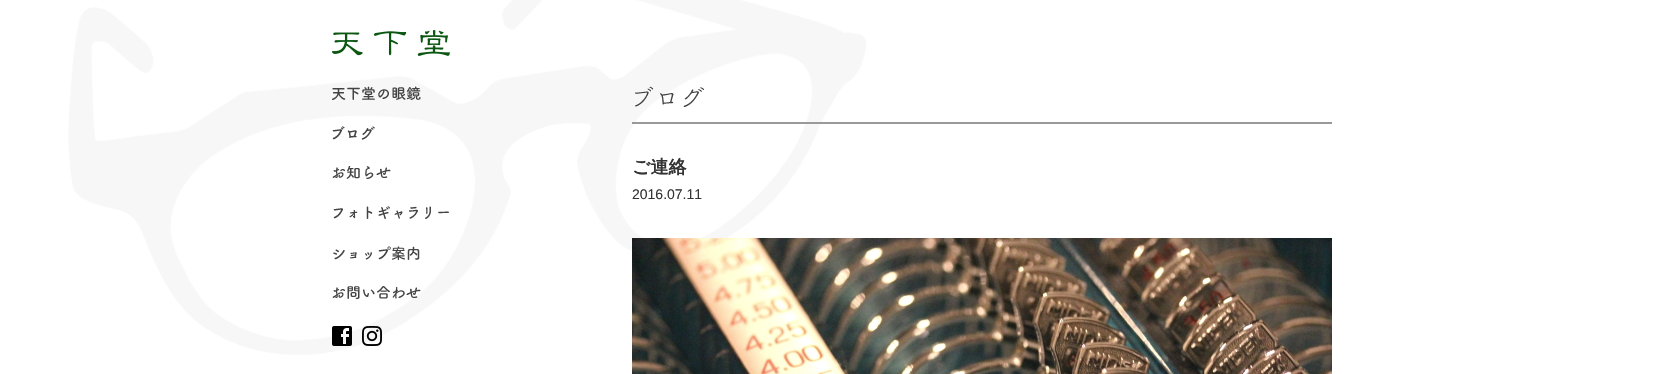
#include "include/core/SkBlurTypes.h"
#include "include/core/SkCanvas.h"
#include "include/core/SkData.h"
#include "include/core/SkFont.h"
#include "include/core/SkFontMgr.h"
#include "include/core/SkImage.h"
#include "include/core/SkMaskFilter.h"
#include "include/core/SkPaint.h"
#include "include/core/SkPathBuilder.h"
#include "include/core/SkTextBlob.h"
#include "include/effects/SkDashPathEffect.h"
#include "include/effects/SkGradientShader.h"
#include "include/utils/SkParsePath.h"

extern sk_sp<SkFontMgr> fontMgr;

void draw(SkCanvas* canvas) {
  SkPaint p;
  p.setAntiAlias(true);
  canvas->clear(SK_ColorWHITE);
  canvas->drawImageRect(SkImages::DeferredFromEncodedData(SkData::MakeFromFileName("images/1.png")), SkRect::MakeLTRB(68, 0, 866, 355), SkSamplingOptions());
  canvas->drawImageRect(SkImages::DeferredFromEncodedData(SkData::MakeFromFileName("images/2.png")), SkRect::MakeLTRB(332, 30, 450, 56), SkSamplingOptions());
  canvas->drawImageRect(SkImages::DeferredFromEncodedData(SkData::MakeFromFileName("images/3.png")), SkRect::MakeLTRB(332, 86, 421, 100), SkSamplingOptions());
  canvas->drawImageRect(SkImages::DeferredFromEncodedData(SkData::MakeFromFileName("images/4.png")), SkRect::MakeLTRB(332, 126, 375, 140), SkSamplingOptions());
  canvas->drawImageRect(SkImages::DeferredFromEncodedData(SkData::MakeFromFileName("images/5.png")), SkRect::MakeLTRB(332, 166, 391, 179), SkSamplingOptions());
  canvas->drawImageRect(SkImages::DeferredFromEncodedData(SkData::MakeFromFileName("images/6.png")), SkRect::MakeLTRB(333, 206, 449, 219), SkSamplingOptions());
  canvas->drawImageRect(SkImages::DeferredFromEncodedData(SkData::MakeFromFileName("images/7.png")), SkRect::MakeLTRB(333, 246, 420, 260), SkSamplingOptions());
  canvas->drawImageRect(SkImages::DeferredFromEncodedData(SkData::MakeFromFileName("images/8.png")), SkRect::MakeLTRB(332, 286, 421, 299), SkSamplingOptions());
  canvas->drawImageRect(SkImages::DeferredFromEncodedData(SkData::MakeFromFileName("images/9.png")), SkRect::MakeLTRB(332, 326, 352, 346), SkSamplingOptions());
  canvas->drawImageRect(SkImages::DeferredFromEncodedData(SkData::MakeFromFileName("images/10.png")), SkRect::MakeLTRB(362, 326, 382, 346), SkSamplingOptions());
  p.setColor(SkColorSetRGB(153, 153, 153));
  canvas->drawRect(SkRect::MakeLTRB(632, 122, 1332, 124), p);
  canvas->drawImageRect(SkImages::DeferredFromEncodedData(SkData::MakeFromFileName("images/11.png")), SkRect::MakeLTRB(635, 86, 704, 107), SkSamplingOptions());
  canvas->drawImageRect(SkImages::DeferredFromEncodedData(SkData::MakeFromFileName("images/12.png")), SkRect::MakeLTRB(632, 238, 1332, 374), SkSamplingOptions());
  SkFont font1(fontMgr->matchFamilyStyle("WenQuanYi Zen Hei", SkFontStyle::Bold()), 18);
  font1.setSubpixel(true);
  p.setColor(SkColorSetRGB(51, 51, 51));
  canvas->drawString("ご連絡", 632, 173, font1, p);
  SkFont font2(fontMgr->matchFamilyStyle("Liberation Sans", SkFontStyle::Normal()), 14);
  font2.setSubpixel(true);
  canvas->drawString("2016.07.11", 632, 199, font2, p);
}
